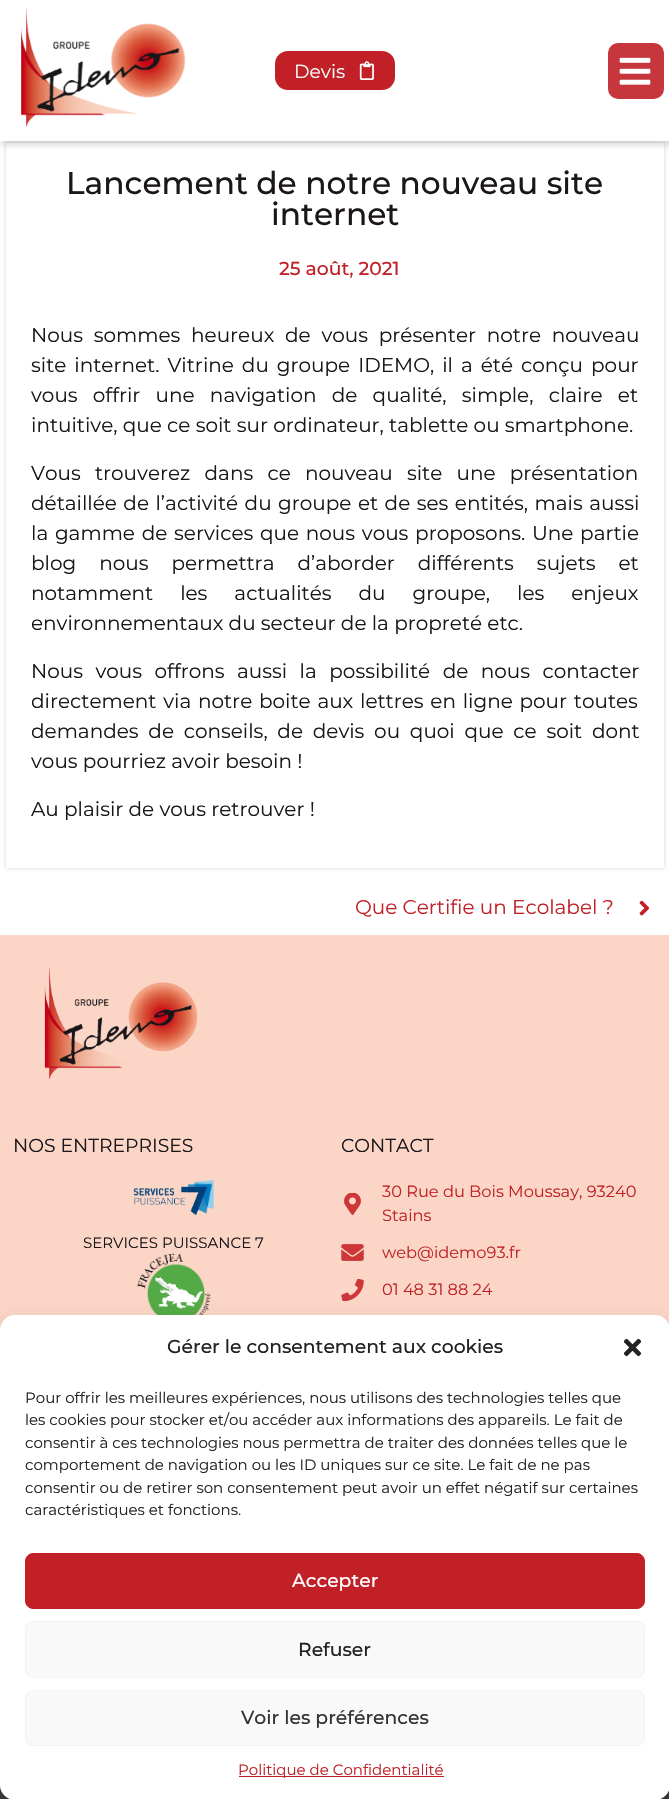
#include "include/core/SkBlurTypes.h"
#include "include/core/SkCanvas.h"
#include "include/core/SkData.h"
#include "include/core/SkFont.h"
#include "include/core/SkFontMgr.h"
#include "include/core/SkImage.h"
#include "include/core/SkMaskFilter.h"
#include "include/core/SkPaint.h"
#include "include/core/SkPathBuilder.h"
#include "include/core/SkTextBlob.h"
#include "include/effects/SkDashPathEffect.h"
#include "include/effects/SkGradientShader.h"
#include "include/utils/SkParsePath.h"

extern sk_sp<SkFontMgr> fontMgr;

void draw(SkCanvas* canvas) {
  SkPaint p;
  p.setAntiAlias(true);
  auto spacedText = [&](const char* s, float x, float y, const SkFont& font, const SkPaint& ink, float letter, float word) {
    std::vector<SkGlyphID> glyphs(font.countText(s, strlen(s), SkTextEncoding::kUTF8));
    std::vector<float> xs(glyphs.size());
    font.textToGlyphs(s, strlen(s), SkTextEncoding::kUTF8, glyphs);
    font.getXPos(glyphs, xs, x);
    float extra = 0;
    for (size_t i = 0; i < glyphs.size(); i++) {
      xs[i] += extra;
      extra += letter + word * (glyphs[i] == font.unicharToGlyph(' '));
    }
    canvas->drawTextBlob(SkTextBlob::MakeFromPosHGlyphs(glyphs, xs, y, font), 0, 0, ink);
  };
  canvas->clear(SK_ColorWHITE);
  p.setColor(SkColorSetARGB(43, 0, 0, 0));
  p.setMaskFilter(SkMaskFilter::MakeBlur(kNormal_SkBlurStyle, 2));
  canvas->drawRect(SkRect::MakeLTRB(6, 143, 664, 868), p);
  p.setMaskFilter(nullptr);
  p.setColor(SK_ColorWHITE);
  canvas->drawRect(SkRect::MakeLTRB(6, 143, 664, 868), p);
  p.setColor(SkColorSetARGB(38, 0, 0, 0));
  p.setMaskFilter(SkMaskFilter::MakeBlur(kNormal_SkBlurStyle, 3));
  canvas->drawRect(SkRect::MakeLTRB(1, 1, 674, 145), p);
  p.setMaskFilter(nullptr);
  p.setColor(SK_ColorWHITE);
  canvas->drawRect(SkRect::MakeLTRB(0, 0, 669, 141), p);
  canvas->drawImageRect(SkImages::DeferredFromEncodedData(SkData::MakeFromFileName("images/1.png")), SkRect::MakeLTRB(21, 8, 186, 127), SkSamplingOptions());
  p.setColor(SkColorSetRGB(192, 32, 38));
  canvas->drawRoundRect(SkRect::MakeLTRB(275, 51, 395, 90), 13, 13, p);
  canvas->drawImageRect(SkImages::DeferredFromEncodedData(SkData::MakeFromFileName("images/2.png")), SkRect::MakeLTRB(359, 61, 374, 80), SkSamplingOptions());
  p.setColor(SkColorSetRGB(198, 54, 60));
  canvas->drawRoundRect(SkRect::MakeLTRB(608, 43, 664, 99), 10, 10, p);
  canvas->drawImageRect(SkImages::DeferredFromEncodedData(SkData::MakeFromFileName("images/3.png")), SkRect::MakeLTRB(619, 57, 651, 85), SkSamplingOptions());
  canvas->drawImageRect(SkImages::DeferredFromEncodedData(SkData::MakeFromFileName("images/4.png")), SkRect::MakeLTRB(639, 900, 650, 916), SkSamplingOptions());
  p.setColor(SkColorSetRGB(251, 214, 198));
  canvas->drawRect(SkRect::MakeLTRB(0, 935, 669, 1330), p);
  canvas->drawImageRect(SkImages::DeferredFromEncodedData(SkData::MakeFromFileName("images/5.png")), SkRect::MakeLTRB(44, 968, 197, 1080), SkSamplingOptions());
  canvas->drawImageRect(SkImages::DeferredFromEncodedData(SkData::MakeFromFileName("images/6.png")), SkRect::MakeLTRB(133, 1180, 214, 1215), SkSamplingOptions());
  canvas->drawImageRect(SkImages::DeferredFromEncodedData(SkData::MakeFromFileName("images/7.png")), SkRect::MakeLTRB(137, 1253, 211, 1315), SkSamplingOptions());
  canvas->drawImageRect(SkImages::DeferredFromEncodedData(SkData::MakeFromFileName("images/8.png")), SkRect::MakeLTRB(344, 1193, 361, 1215), SkSamplingOptions());
  canvas->drawImageRect(SkImages::DeferredFromEncodedData(SkData::MakeFromFileName("images/9.png")), SkRect::MakeLTRB(341, 1244, 364, 1261), SkSamplingOptions());
  canvas->drawImageRect(SkImages::DeferredFromEncodedData(SkData::MakeFromFileName("images/10.png")), SkRect::MakeLTRB(341, 1279, 364, 1301), SkSamplingOptions());
  p.setColor(SkColorSetRGB(67, 70, 76));
  canvas->drawRect(SkRect::MakeLTRB(0, 1785, 669, 1799), p);
  p.setColor(SkColorSetARGB(59, 0, 0, 0));
  p.setMaskFilter(SkMaskFilter::MakeBlur(kNormal_SkBlurStyle, 4));
  canvas->drawRoundRect(SkRect::MakeLTRB(0, 1323, 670, 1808), 15, 15, p);
  p.setMaskFilter(nullptr);
  p.setColor(SkColorSetARGB(48, 0, 0, 0));
  p.setMaskFilter(SkMaskFilter::MakeBlur(kNormal_SkBlurStyle, 12.5f));
  canvas->drawRoundRect(SkRect::MakeLTRB(0, 1328, 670, 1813), 15, 15, p);
  p.setMaskFilter(nullptr);
  p.setColor(SK_ColorWHITE);
  canvas->drawRoundRect(SkRect::MakeLTRB(0, 1315, 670, 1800), 15, 15, p);
  canvas->drawImageRect(SkImages::DeferredFromEncodedData(SkData::MakeFromFileName("images/11.png")), SkRect::MakeLTRB(623, 1338, 642, 1357), SkSamplingOptions());
  p.setColor(SkColorSetRGB(192, 32, 38));
  canvas->drawRoundRect(SkRect::MakeLTRB(25.5f, 1553.5f, 644.5f, 1608.5f), 7.5f, 7.5f, p);
  p.setStyle(SkPaint::kStroke_Style);
  p.setStrokeWidth(1);
  canvas->drawRoundRect(SkRect::MakeLTRB(25.5f, 1553.5f, 644.5f, 1608.5f), 7.5f, 7.5f, p);
  p.setStyle(SkPaint::kFill_Style);
  p.setColor(SkColorSetRGB(249, 249, 249));
  canvas->drawRoundRect(SkRect::MakeLTRB(25.5f, 1621.5f, 644.5f, 1677.5f), 7.5f, 7.5f, p);
  p.setStyle(SkPaint::kStroke_Style);
  p.setColor(SkColorSetRGB(242, 242, 242));
  canvas->drawRoundRect(SkRect::MakeLTRB(25.5f, 1621.5f, 644.5f, 1677.5f), 7.5f, 7.5f, p);
  p.setStyle(SkPaint::kFill_Style);
  p.setColor(SkColorSetRGB(249, 249, 249));
  canvas->drawRoundRect(SkRect::MakeLTRB(25.5f, 1690.5f, 644.5f, 1745.5f), 7.5f, 7.5f, p);
  p.setStyle(SkPaint::kStroke_Style);
  p.setColor(SkColorSetRGB(242, 242, 242));
  canvas->drawRoundRect(SkRect::MakeLTRB(25.5f, 1690.5f, 644.5f, 1745.5f), 7.5f, 7.5f, p);
  p.setStyle(SkPaint::kFill_Style);
  p.setColor(SkColorSetRGB(192, 32, 38));
  canvas->drawRect(SkRect::MakeLTRB(239, 1776, 444, 1777), p);
  SkFont font1(fontMgr->matchFamilyStyle("Montserrat", SkFontStyle::Normal()), 18.75f);
  font1.setSubpixel(true);
  p.setColor(SkColorSetRGB(249, 249, 249));
  canvas->drawString("Devis", 294, 78, font1, p);
  SkFont font2(fontMgr->matchFamilyStyle("Montserrat", SkFontStyle(500, SkFontStyle::kNormal_Width, SkFontStyle::kUpright_Slant)), 31.25f);
  font2.setSubpixel(true);
  p.setColor(SkColorSetRGB(26, 22, 26));
  canvas->drawString("Lancement de notre nouveau site", 66, 194, font2, p);
  canvas->drawString("internet", 271, 225, font2, p);
  SkFont font3(fontMgr->matchFamilyStyle("Montserrat", SkFontStyle(500, SkFontStyle::kNormal_Width, SkFontStyle::kUpright_Slant)), 18.75f);
  font3.setSubpixel(true);
  p.setColor(SkColorSetRGB(192, 32, 38));
  canvas->drawString("25 août, 2021", 279, 275, font3, p);
  SkFont font4(fontMgr->matchFamilyStyle("Montserrat", SkFontStyle::Normal()), 20);
  font4.setSubpixel(true);
  p.setColor(SkColorSetRGB(26, 22, 26));
  spacedText("Nous sommes heureux de vous présenter notre nouveau", 31, 342, font4, p, 0, 5.5f);
  spacedText("site internet. Vitrine du groupe IDEMO, il a été conçu pour", 31, 372, font4, p, 0, 2.75f);
  spacedText("vous offrir une navigation de qualité, simple, claire et", 31, 402, font4, p, 0, 10);
  canvas->drawString("intuitive, que ce soit sur ordinateur, tablette ou smartphone.", 31, 432, font4, p);
  spacedText("Vous trouverez dans ce nouveau site une présentation", 31, 480, font4, p, 0, 9);
  spacedText("détaillée de l’activité du groupe et de ses entités, mais aussi", 31, 510, font4, p, 0, 1.25f);
  spacedText("la gamme de services que nous vous proposons. Une partie", 31, 540, font4, p, 0, 1.5f);
  spacedText("blog nous permettra d’aborder différents sujets et", 31, 570, font4, p, 0, 17.75f);
  spacedText("notamment les actualités du groupe, les enjeux", 31, 600, font4, p, 0, 21.75f);
  canvas->drawString("environnementaux du secteur de la propreté etc.", 31, 630, font4, p);
  spacedText("Nous vous offrons aussi la possibilité de nous contacter", 31, 678, font4, p, 0, 7.25f);
  spacedText("directement via notre boite aux lettres en ligne pour toutes", 31, 708, font4, p, 0, 1.5f);
  spacedText("demandes de conseils, de devis ou quoi que ce soit dont", 31, 738, font4, p, 0, 4.5f);
  canvas->drawString("vous pourriez avoir besoin !", 31, 768, font4, p);
  canvas->drawString("Au plaisir de vous retrouver !", 31, 816, font4, p);
  p.setColor(SkColorSetRGB(192, 32, 38));
  canvas->drawString("Que Certifie un Ecolabel ?", 355, 914, font4, p);
  p.setColor(SkColorSetRGB(26, 22, 26));
  canvas->drawString("NOS ENTREPRISES", 13, 1152, font1, p);
  SkFont font5(fontMgr->matchFamilyStyle("Montserrat", SkFontStyle::Normal()), 15);
  font5.setSubpixel(true);
  canvas->drawString("SERVICES PUISSANCE 7", 83, 1248, font5, p);
  canvas->drawString("CONTACT", 341, 1152, font1, p);
  SkFont font6(fontMgr->matchFamilyStyle("Montserrat", SkFontStyle::Normal()), 16.25f);
  font6.setSubpixel(true);
  p.setColor(SkColorSetRGB(192, 32, 38));
  canvas->drawString("30 Rue du Bois Moussay, 93240", 382, 1197, font6, p);
  canvas->drawString("Stains", 382, 1221, font6, p);
  canvas->drawString("web@idemo93.fr", 382, 1258, font6, p);
  canvas->drawString("01 48 31 88 24", 382, 1295, font6, p);
  p.setColor(SkColorSetRGB(34, 34, 34));
  canvas->drawString("Gérer le consentement aux cookies", 167, 1353, font3, p);
  canvas->drawString("Pour offrir les meilleures expériences, nous utilisons des technologies telles que", 25, 1403, font5, p);
  canvas->drawString("les cookies pour stocker et/ou accéder aux informations des appareils. Le fait de", 25, 1425, font5, p);
  canvas->drawString("consentir à ces technologies nous permettra de traiter des données telles que le", 25, 1448, font5, p);
  canvas->drawString("comportement de navigation ou les ID uniques sur ce site. Le fait de ne pas", 25, 1470, font5, p);
  canvas->drawString("consentir ou de retirer son consentement peut avoir un effet négatif sur certaines", 25, 1493, font5, p);
  canvas->drawString("caractéristiques et fonctions.", 25, 1515, font5, p);
  p.setColor(SK_ColorWHITE);
  canvas->drawString("Accepter", 292, 1587, font3, p);
  p.setColor(SkColorSetRGB(34, 34, 34));
  canvas->drawString("Refuser", 298, 1656, font3, p);
  p.setColor(SkColorSetRGB(51, 51, 51));
  canvas->drawString("Voir les préférences", 241, 1724, font3, p);
  p.setColor(SkColorSetRGB(192, 32, 38));
  canvas->drawString("Politique de Confidentialité", 238, 1775, font5, p);
}
